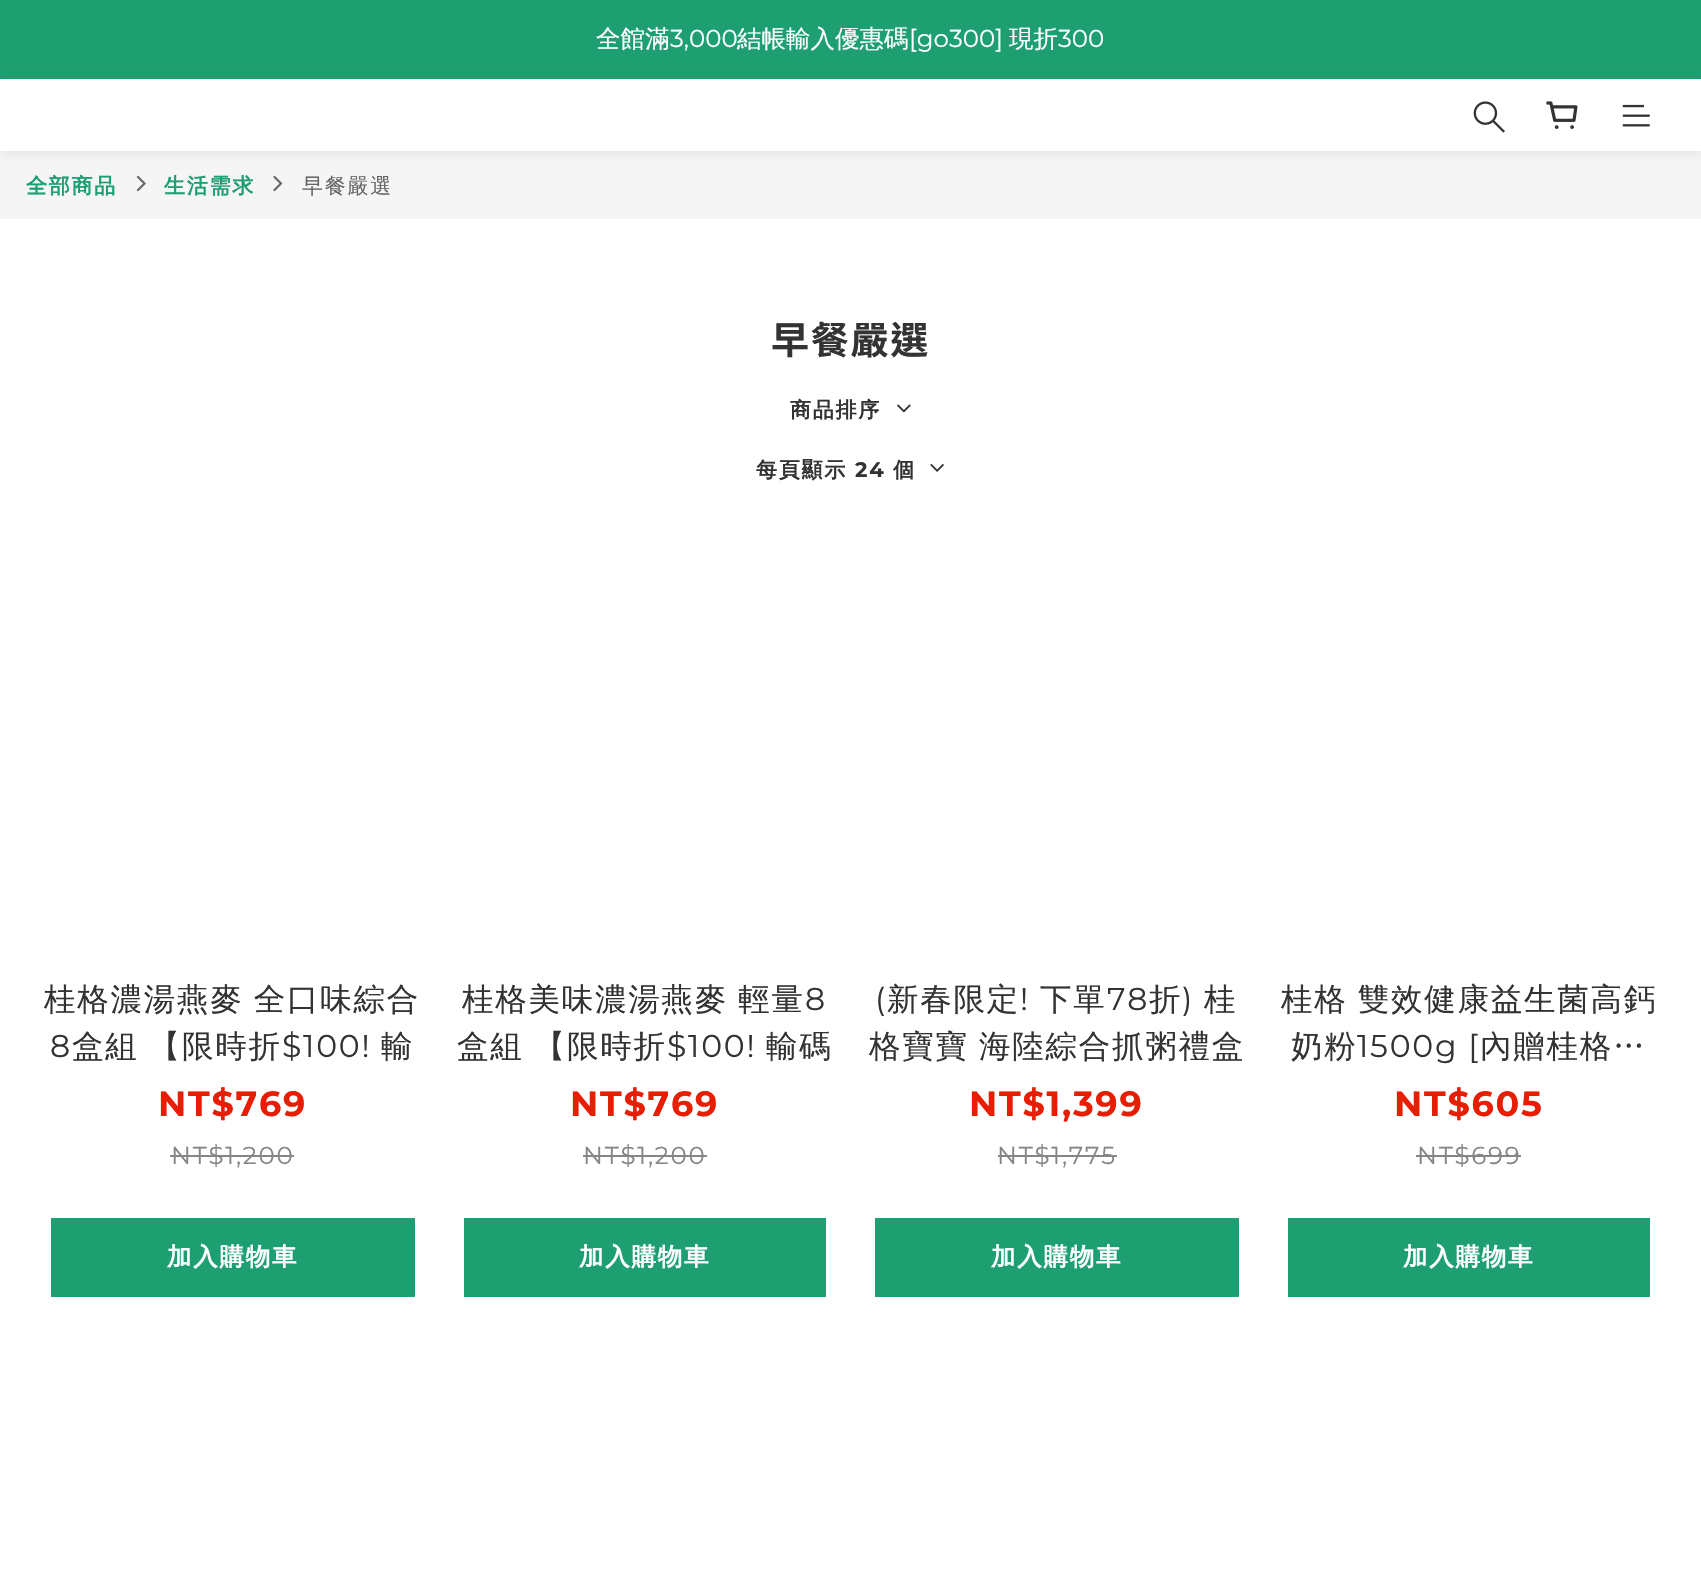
#include "include/core/SkBlurTypes.h"
#include "include/core/SkCanvas.h"
#include "include/core/SkData.h"
#include "include/core/SkFont.h"
#include "include/core/SkFontMgr.h"
#include "include/core/SkImage.h"
#include "include/core/SkMaskFilter.h"
#include "include/core/SkPaint.h"
#include "include/core/SkPathBuilder.h"
#include "include/core/SkTextBlob.h"
#include "include/effects/SkDashPathEffect.h"
#include "include/effects/SkGradientShader.h"
#include "include/utils/SkParsePath.h"

extern sk_sp<SkFontMgr> fontMgr;

void draw(SkCanvas* canvas) {
  SkPaint p;
  p.setAntiAlias(true);
  auto spacedText = [&](const char* s, float x, float y, const SkFont& font, const SkPaint& ink, float letter, float word) {
    std::vector<SkGlyphID> glyphs(font.countText(s, strlen(s), SkTextEncoding::kUTF8));
    std::vector<float> xs(glyphs.size());
    font.textToGlyphs(s, strlen(s), SkTextEncoding::kUTF8, glyphs);
    font.getXPos(glyphs, xs, x);
    float extra = 0;
    for (size_t i = 0; i < glyphs.size(); i++) {
      xs[i] += extra;
      extra += letter + word * (glyphs[i] == font.unicharToGlyph(' '));
    }
    canvas->drawTextBlob(SkTextBlob::MakeFromPosHGlyphs(glyphs, xs, y, font), 0, 0, ink);
  };
  canvas->clear(SK_ColorWHITE);
  p.setColor(SkColorSetRGB(30, 159, 113));
  canvas->drawRect(SkRect::MakeLTRB(0, 0, 1701, 79), p);
  p.setColor(SkColorSetRGB(245, 245, 245));
  canvas->drawRect(SkRect::MakeLTRB(0, 151, 1701, 219), p);
  p.setColor(SkColorSetARGB(15, 0, 0, 0));
  p.setMaskFilter(SkMaskFilter::MakeBlur(kNormal_SkBlurStyle, 5));
  canvas->drawRect(SkRect::MakeLTRB(0, 82, 1701, 154), p);
  p.setMaskFilter(nullptr);
  p.setColor(SK_ColorWHITE);
  canvas->drawRect(SkRect::MakeLTRB(0, 79, 1701, 151), p);
  canvas->drawImageRect(SkImages::DeferredFromEncodedData(SkData::MakeFromFileName("images/1.png")), SkRect::MakeLTRB(1473, 101, 1505, 133), SkSamplingOptions());
  canvas->drawImageRect(SkImages::DeferredFromEncodedData(SkData::MakeFromFileName("images/2.png")), SkRect::MakeLTRB(1546, 101, 1578, 129), SkSamplingOptions());
  canvas->drawImageRect(SkImages::DeferredFromEncodedData(SkData::MakeFromFileName("images/3.png")), SkRect::MakeLTRB(1622, 104, 1650, 127), SkSamplingOptions());
  canvas->drawImageRect(SkImages::DeferredFromEncodedData(SkData::MakeFromFileName("images/4.png")), SkRect::MakeLTRB(136, 175, 146, 192), SkSamplingOptions());
  canvas->drawImageRect(SkImages::DeferredFromEncodedData(SkData::MakeFromFileName("images/5.png")), SkRect::MakeLTRB(273, 175, 283, 192), SkSamplingOptions());
  canvas->drawImageRect(SkImages::DeferredFromEncodedData(SkData::MakeFromFileName("images/6.png")), SkRect::MakeLTRB(897, 404, 911, 413), SkSamplingOptions());
  canvas->drawImageRect(SkImages::DeferredFromEncodedData(SkData::MakeFromFileName("images/7.png")), SkRect::MakeLTRB(930, 464, 944, 472), SkSamplingOptions());
  p.setColor(SkColorSetRGB(133, 133, 133));
  canvas->drawRect(SkRect::MakeLTRB(170, 1155, 294, 1157), p);
  p.setColor(SkColorSetRGB(30, 159, 113));
  canvas->drawRect(SkRect::MakeLTRB(51, 1218, 415, 1297), p);
  p.setColor(SkColorSetRGB(133, 133, 133));
  canvas->drawRect(SkRect::MakeLTRB(583, 1155, 707, 1157), p);
  p.setColor(SkColorSetRGB(30, 159, 113));
  canvas->drawRect(SkRect::MakeLTRB(464, 1218, 826, 1297), p);
  p.setColor(SkColorSetRGB(133, 133, 133));
  canvas->drawRect(SkRect::MakeLTRB(998, 1155, 1117, 1157), p);
  p.setColor(SkColorSetRGB(30, 159, 113));
  canvas->drawRect(SkRect::MakeLTRB(875, 1218, 1239, 1297), p);
  p.setColor(SkColorSetRGB(133, 133, 133));
  canvas->drawRect(SkRect::MakeLTRB(1416, 1155, 1521, 1157), p);
  p.setColor(SkColorSetRGB(30, 159, 113));
  canvas->drawRect(SkRect::MakeLTRB(1288, 1218, 1650, 1297), p);
  SkFont font1(fontMgr->matchFamilyStyle("WenQuanYi Zen Hei", SkFontStyle(500, SkFontStyle::kNormal_Width, SkFontStyle::kUpright_Slant)), 24.5f);
  font1.setSubpixel(true);
  p.setColor(SK_ColorWHITE);
  canvas->drawString("全館滿", 596, 47, font1, p);
  SkFont font2(fontMgr->matchFamilyStyle("Montserrat", SkFontStyle::Normal()), 24.5f);
  font2.setSubpixel(true);
  canvas->drawString("3,000", 670, 47, font2, p);
  canvas->drawString("結帳輸入優惠碼", 737, 47, font1, p);
  canvas->drawString("[go300]", 909, 47, font2, p);
  canvas->drawString("現折", 1009, 47, font1, p);
  canvas->drawString("300", 1058, 47, font2, p);
  SkFont font3(fontMgr->matchFamilyStyle("WenQuanYi Zen Hei", SkFontStyle::Bold()), 21);
  font3.setSubpixel(true);
  p.setColor(SkColorSetRGB(30, 159, 113));
  spacedText("全部商品", 26, 193, font3, p, 1.75f, 0);
  spacedText("生活需求", 164, 193, font3, p, 1.75f, 0);
  SkFont font4(fontMgr->matchFamilyStyle("WenQuanYi Zen Hei", SkFontStyle(500, SkFontStyle::kNormal_Width, SkFontStyle::kUpright_Slant)), 21);
  font4.setSubpixel(true);
  p.setColor(SkColorSetRGB(102, 102, 102));
  spacedText("早餐嚴選", 302, 193, font4, p, 1.75f, 0);
  SkFont font5(fontMgr->matchFamilyStyle("Noto Sans TC", SkFontStyle::Bold()), 38);
  font5.setSubpixel(true);
  p.setColor(SkColorSetRGB(51, 51, 51));
  spacedText("早餐嚴選", 771, 354, font5, p, 1.75f, 0);
  spacedText("商品排序", 790, 417, font3, p, 1.75f, 0);
  spacedText("每頁顯示", 756, 477, font3, p, 1.75f, 0);
  SkFont font6(fontMgr->matchFamilyStyle("Montserrat", SkFontStyle::Bold()), 21);
  font6.setSubpixel(true);
  spacedText("24", 855, 477, font6, p, 1.75f, 0);
  spacedText("個", 893, 477, font3, p, 1.75f, 0);
  SkFont font7(fontMgr->matchFamilyStyle("WenQuanYi Zen Hei", SkFontStyle(500, SkFontStyle::kNormal_Width, SkFontStyle::kUpright_Slant)), 31.5f);
  font7.setSubpixel(true);
  spacedText("桂格濃湯燕麥 全口味綜合", 44, 1010, font7, p, 1.75f, -1);
  SkFont font8(fontMgr->matchFamilyStyle("Montserrat", SkFontStyle::Normal()), 31.5f);
  font8.setSubpixel(true);
  spacedText("8", 50, 1057, font8, p, 1.75f, 0);
  spacedText("盒組 【限時折", 72, 1057, font7, p, 1.75f, -1);
  spacedText("$100!", 282, 1057, font8, p, 1.75f, 0);
  spacedText("輸", 381, 1057, font7, p, 1.75f, 0);
  SkFont font9(fontMgr->matchFamilyStyle("Montserrat", SkFontStyle::Bold()), 35);
  font9.setSubpixel(true);
  p.setColor(SkColorSetRGB(231, 30, 4));
  spacedText("NT$769", 158, 1116, font9, p, 1.75f, 0);
  p.setColor(SkColorSetRGB(133, 133, 133));
  spacedText("NT$1,200", 171, 1164, font2, p, 1.75f, 0);
  SkFont font10(fontMgr->matchFamilyStyle("WenQuanYi Zen Hei", SkFontStyle::Bold()), 24.5f);
  font10.setSubpixel(true);
  p.setColor(SK_ColorWHITE);
  spacedText("加入購物車", 167, 1265, font10, p, 1.75f, 0);
  p.setColor(SkColorSetRGB(51, 51, 51));
  spacedText("桂格美味濃湯燕麥 輕量", 462, 1010, font7, p, 1.75f, -1);
  spacedText("8", 805, 1010, font8, p, 1.75f, 0);
  spacedText("盒組 【限時折", 457, 1057, font7, p, 1.75f, -1);
  spacedText("$100!", 667, 1057, font8, p, 1.75f, 0);
  spacedText("輸碼", 766, 1057, font7, p, 1.75f, 0);
  p.setColor(SkColorSetRGB(231, 30, 4));
  spacedText("NT$769", 570, 1116, font9, p, 1.75f, 0);
  p.setColor(SkColorSetRGB(133, 133, 133));
  spacedText("NT$1,200", 583, 1164, font2, p, 1.75f, 0);
  p.setColor(SK_ColorWHITE);
  spacedText("加入購物車", 579, 1265, font10, p, 1.75f, 0);
  p.setColor(SkColorSetRGB(51, 51, 51));
  spacedText("(", 875, 1010, font8, p, 1.75f, 0);
  spacedText("新春限定", 887, 1010, font7, p, 1.75f, 0);
  spacedText("!", 1020, 1010, font8, p, 1.75f, 0);
  spacedText("下單", 1040, 1010, font7, p, 1.75f, 0);
  spacedText("78", 1107, 1010, font8, p, 1.75f, 0);
  spacedText("折", 1149, 1010, font7, p, 1.75f, 0);
  spacedText(")", 1182, 1010, font8, p, 1.75f, 0);
  spacedText("桂", 1204, 1010, font7, p, 1.75f, 0);
  spacedText("格寶寶 海陸綜合抓粥禮盒", 869, 1057, font7, p, 1.75f, -1);
  p.setColor(SkColorSetRGB(231, 30, 4));
  spacedText("NT$1,399", 969, 1116, font9, p, 1.75f, 0);
  p.setColor(SkColorSetRGB(133, 133, 133));
  spacedText("NT$1,775", 997, 1164, font2, p, 1.75f, 0);
  p.setColor(SK_ColorWHITE);
  spacedText("加入購物車", 991, 1265, font10, p, 1.75f, 0);
  p.setColor(SkColorSetRGB(51, 51, 51));
  spacedText("桂格 雙效健康益生菌高鈣", 1281, 1010, font7, p, 1.75f, -1);
  spacedText("奶粉", 1291, 1057, font7, p, 1.75f, 0);
  spacedText("1500g [", 1357, 1057, font8, p, 1.75f, 0);
  spacedText("內贈桂格…", 1480, 1057, font7, p, 1.75f, 0);
  p.setColor(SkColorSetRGB(231, 30, 4));
  spacedText("NT$605", 1394, 1116, font9, p, 1.75f, 0);
  p.setColor(SkColorSetRGB(133, 133, 133));
  spacedText("NT$699", 1417, 1164, font2, p, 1.75f, 0);
  p.setColor(SK_ColorWHITE);
  spacedText("加入購物車", 1403, 1265, font10, p, 1.75f, 0);
}
